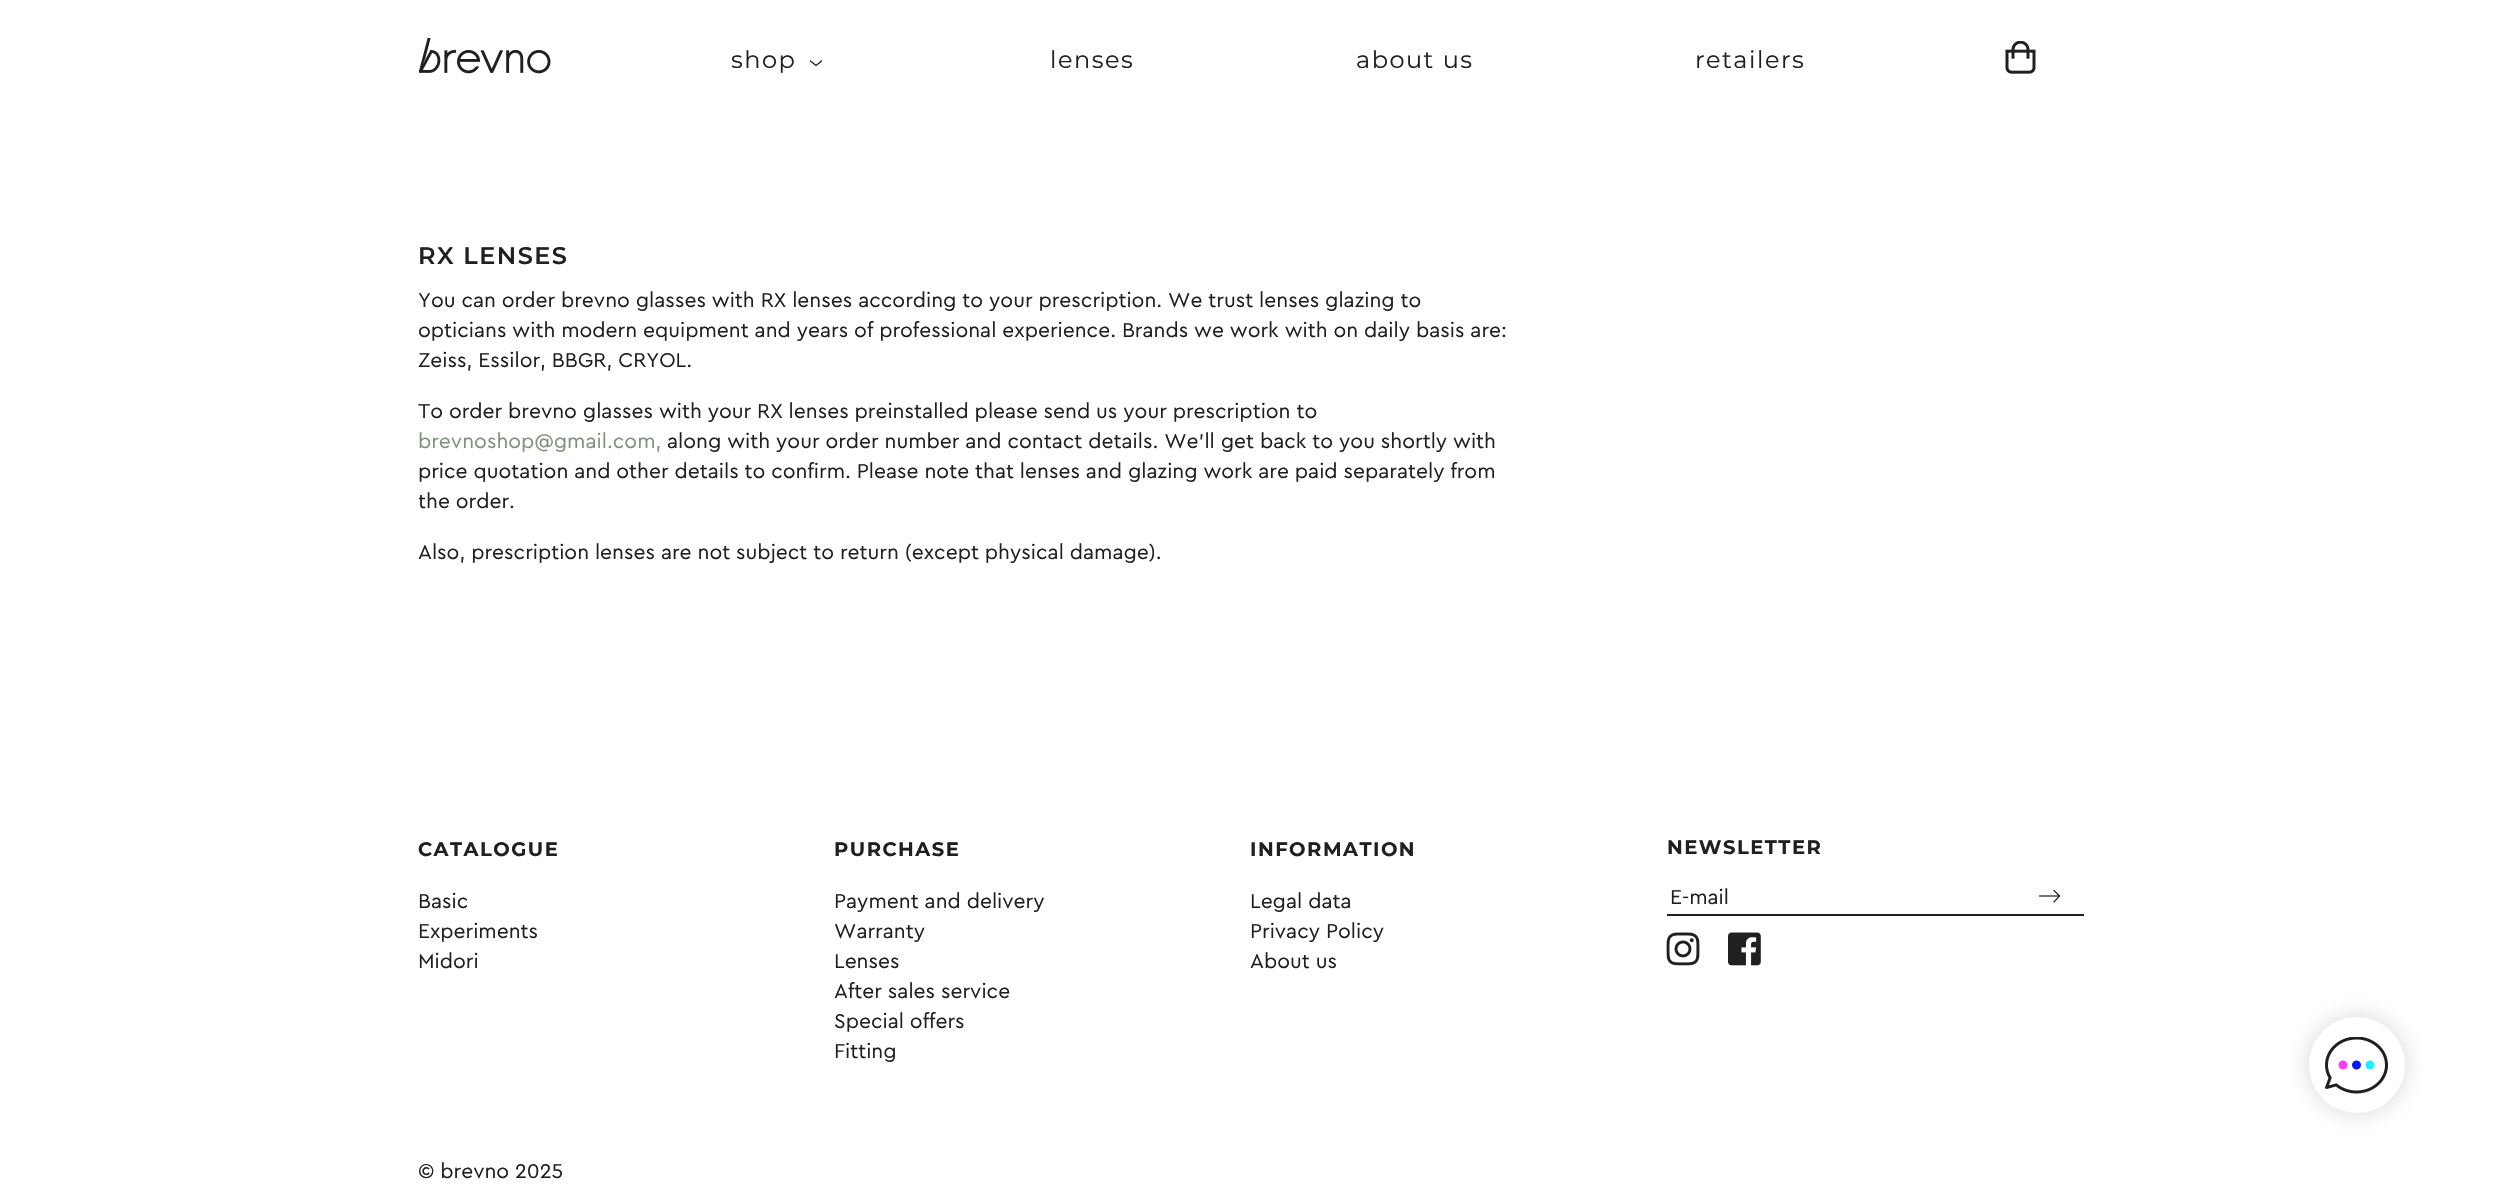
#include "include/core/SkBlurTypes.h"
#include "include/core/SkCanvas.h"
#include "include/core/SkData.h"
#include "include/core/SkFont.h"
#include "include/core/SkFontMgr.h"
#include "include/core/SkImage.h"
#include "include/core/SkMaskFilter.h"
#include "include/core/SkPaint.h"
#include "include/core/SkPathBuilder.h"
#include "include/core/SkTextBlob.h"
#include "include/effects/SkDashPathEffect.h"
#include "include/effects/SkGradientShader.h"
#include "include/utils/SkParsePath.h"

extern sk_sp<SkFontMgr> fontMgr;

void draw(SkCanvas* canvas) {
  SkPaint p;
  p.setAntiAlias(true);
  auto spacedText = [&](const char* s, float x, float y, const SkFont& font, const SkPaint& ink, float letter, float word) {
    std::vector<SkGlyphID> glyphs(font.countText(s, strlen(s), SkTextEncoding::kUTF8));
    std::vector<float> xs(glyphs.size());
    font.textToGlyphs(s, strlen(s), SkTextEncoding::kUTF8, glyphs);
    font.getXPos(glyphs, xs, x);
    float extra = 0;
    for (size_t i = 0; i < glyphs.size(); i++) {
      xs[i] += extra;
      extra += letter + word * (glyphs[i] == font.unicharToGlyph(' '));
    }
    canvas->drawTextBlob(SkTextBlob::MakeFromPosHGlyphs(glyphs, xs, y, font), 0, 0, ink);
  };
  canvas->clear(SK_ColorWHITE);
  canvas->drawImageRect(SkImages::DeferredFromEncodedData(SkData::MakeFromFileName("images/1.png")), SkRect::MakeLTRB(419, 38, 551, 74), SkSamplingOptions());
  canvas->drawImageRect(SkImages::DeferredFromEncodedData(SkData::MakeFromFileName("images/2.png")), SkRect::MakeLTRB(810, 60, 822, 67), SkSamplingOptions());
  canvas->drawImageRect(SkImages::DeferredFromEncodedData(SkData::MakeFromFileName("images/3.png")), SkRect::MakeLTRB(2005, 41, 2036, 74), SkSamplingOptions());
  p.setColor(SkColorSetRGB(32, 32, 32));
  canvas->drawRect(SkRect::MakeLTRB(1667, 914, 2084, 916), p);
  p.setStyle(SkPaint::kStroke_Style);
  p.setStrokeWidth(1.2f);
  p.setColor(SkColorSetRGB(26, 26, 26));
  canvas->drawPath(SkPathBuilder().moveTo(2039, 896).lineTo(2060, 896).detach(), p);
  p.setStrokeCap(SkPaint::kSquare_Cap);
  canvas->drawPath(SkPathBuilder().moveTo(2054, 890.5f).lineTo(2059.5f, 896).lineTo(2054, 902).detach(), p);
  canvas->drawImageRect(SkImages::DeferredFromEncodedData(SkData::MakeFromFileName("images/4.png")), SkRect::MakeLTRB(1666, 932, 1700, 966), SkSamplingOptions());
  canvas->drawImageRect(SkImages::DeferredFromEncodedData(SkData::MakeFromFileName("images/5.png")), SkRect::MakeLTRB(1728, 932, 1761, 966), SkSamplingOptions());
  p.setStyle(SkPaint::kFill_Style);
  p.setColor(SkColorSetARGB(128, 175, 175, 175));
  p.setMaskFilter(SkMaskFilter::MakeBlur(kNormal_SkBlurStyle, 12));
  canvas->drawRoundRect(SkRect::MakeLTRB(2309, 1017, 2405, 1113), 48, 48, p);
  p.setMaskFilter(nullptr);
  p.setColor(SK_ColorWHITE);
  canvas->drawCircle(2357, 1065, 48, p);
  canvas->drawImageRect(SkImages::DeferredFromEncodedData(SkData::MakeFromFileName("images/6.png")), SkRect::MakeLTRB(2325, 1037, 2388, 1094), SkSamplingOptions());
  SkFont font1(fontMgr->matchFamilyStyle("Montserrat", SkFontStyle::Normal()), 24);
  font1.setSubpixel(true);
  p.setColor(SkColorSetRGB(32, 32, 32));
  spacedText("shop", 731, 68, font1, p, 1.5f, 0);
  spacedText("lenses", 1050, 68, font1, p, 1.5f, 0);
  spacedText("about us", 1356, 68, font1, p, 1.5f, 0);
  spacedText("retailers", 1695, 68, font1, p, 1.5f, 0);
  SkFont font2(fontMgr->matchFamilyStyle("Montserrat", SkFontStyle(600, SkFontStyle::kNormal_Width, SkFontStyle::kUpright_Slant)), 24);
  font2.setSubpixel(true);
  spacedText("RX LENSES", 418, 264, font2, p, 1.5f, 0);
  SkFont font3(fontMgr->matchFamilyStyle("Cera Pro", SkFontStyle::Normal()), 21);
  font3.setSubpixel(true);
  canvas->drawString("You can order brevno glasses with RX lenses according to your prescription. We trust lenses glazing to", 418, 307, font3, p);
  canvas->drawString("opticians with modern equipment and years of professional experience. Brands we work with on daily basis are:", 418, 337, font3, p);
  canvas->drawString("Zeiss, Essilor, BBGR, CRYOL.", 418, 367, font3, p);
  canvas->drawString("To order brevno glasses with your RX lenses preinstalled please send us your prescription to", 418, 418, font3, p);
  p.setColor(SkColorSetRGB(128, 146, 123));
  canvas->drawString("brevnoshop@gmail.com,", 418, 448, font3, p);
  p.setColor(SkColorSetRGB(32, 32, 32));
  canvas->drawString("along with your order number and contact details. We'll get back to you shortly with", 667, 448, font3, p);
  canvas->drawString("price quotation and other details to confirm. Please note that lenses and glazing work are paid separately from", 418, 478, font3, p);
  canvas->save();
  canvas->clipRect(SkRect::MakeLTRB(419, 285, 1514, 639));
  canvas->drawString("the order.", 418, 508, font3, p);
  canvas->restore();
  canvas->drawString("Also, prescription lenses are not subject to return (except physical damage).", 418, 559, font3, p);
  SkFont font4(fontMgr->matchFamilyStyle("Montserrat", SkFontStyle::Bold()), 19.5f);
  font4.setSubpixel(true);
  spacedText("CATALOGUE", 418, 856, font4, p, 1.5f, 0);
  canvas->drawString("Basic", 418, 908, font3, p);
  canvas->drawString("Experiments", 418, 938, font3, p);
  canvas->drawString("Midori", 418, 968, font3, p);
  spacedText("PURCHASE", 834, 856, font4, p, 1.5f, 0);
  canvas->drawString("Payment and delivery", 834, 908, font3, p);
  canvas->drawString("Warranty", 834, 938, font3, p);
  canvas->drawString("Lenses", 834, 968, font3, p);
  canvas->drawString("After sales service", 834, 998, font3, p);
  canvas->drawString("Special offers", 834, 1028, font3, p);
  canvas->drawString("Fitting", 834, 1058, font3, p);
  spacedText("INFORMATION", 1250, 856, font4, p, 1.5f, 0);
  canvas->drawString("Legal data", 1250, 908, font3, p);
  canvas->drawString("Privacy Policy", 1250, 938, font3, p);
  canvas->drawString("About us", 1250, 968, font3, p);
  spacedText("NEWSLETTER", 1667, 854, font4, p, 1.5f, 0);
  canvas->drawString("E-mail", 1670, 904, font3, p);
  canvas->drawString("© brevno 2025", 418, 1178, font3, p);
}
